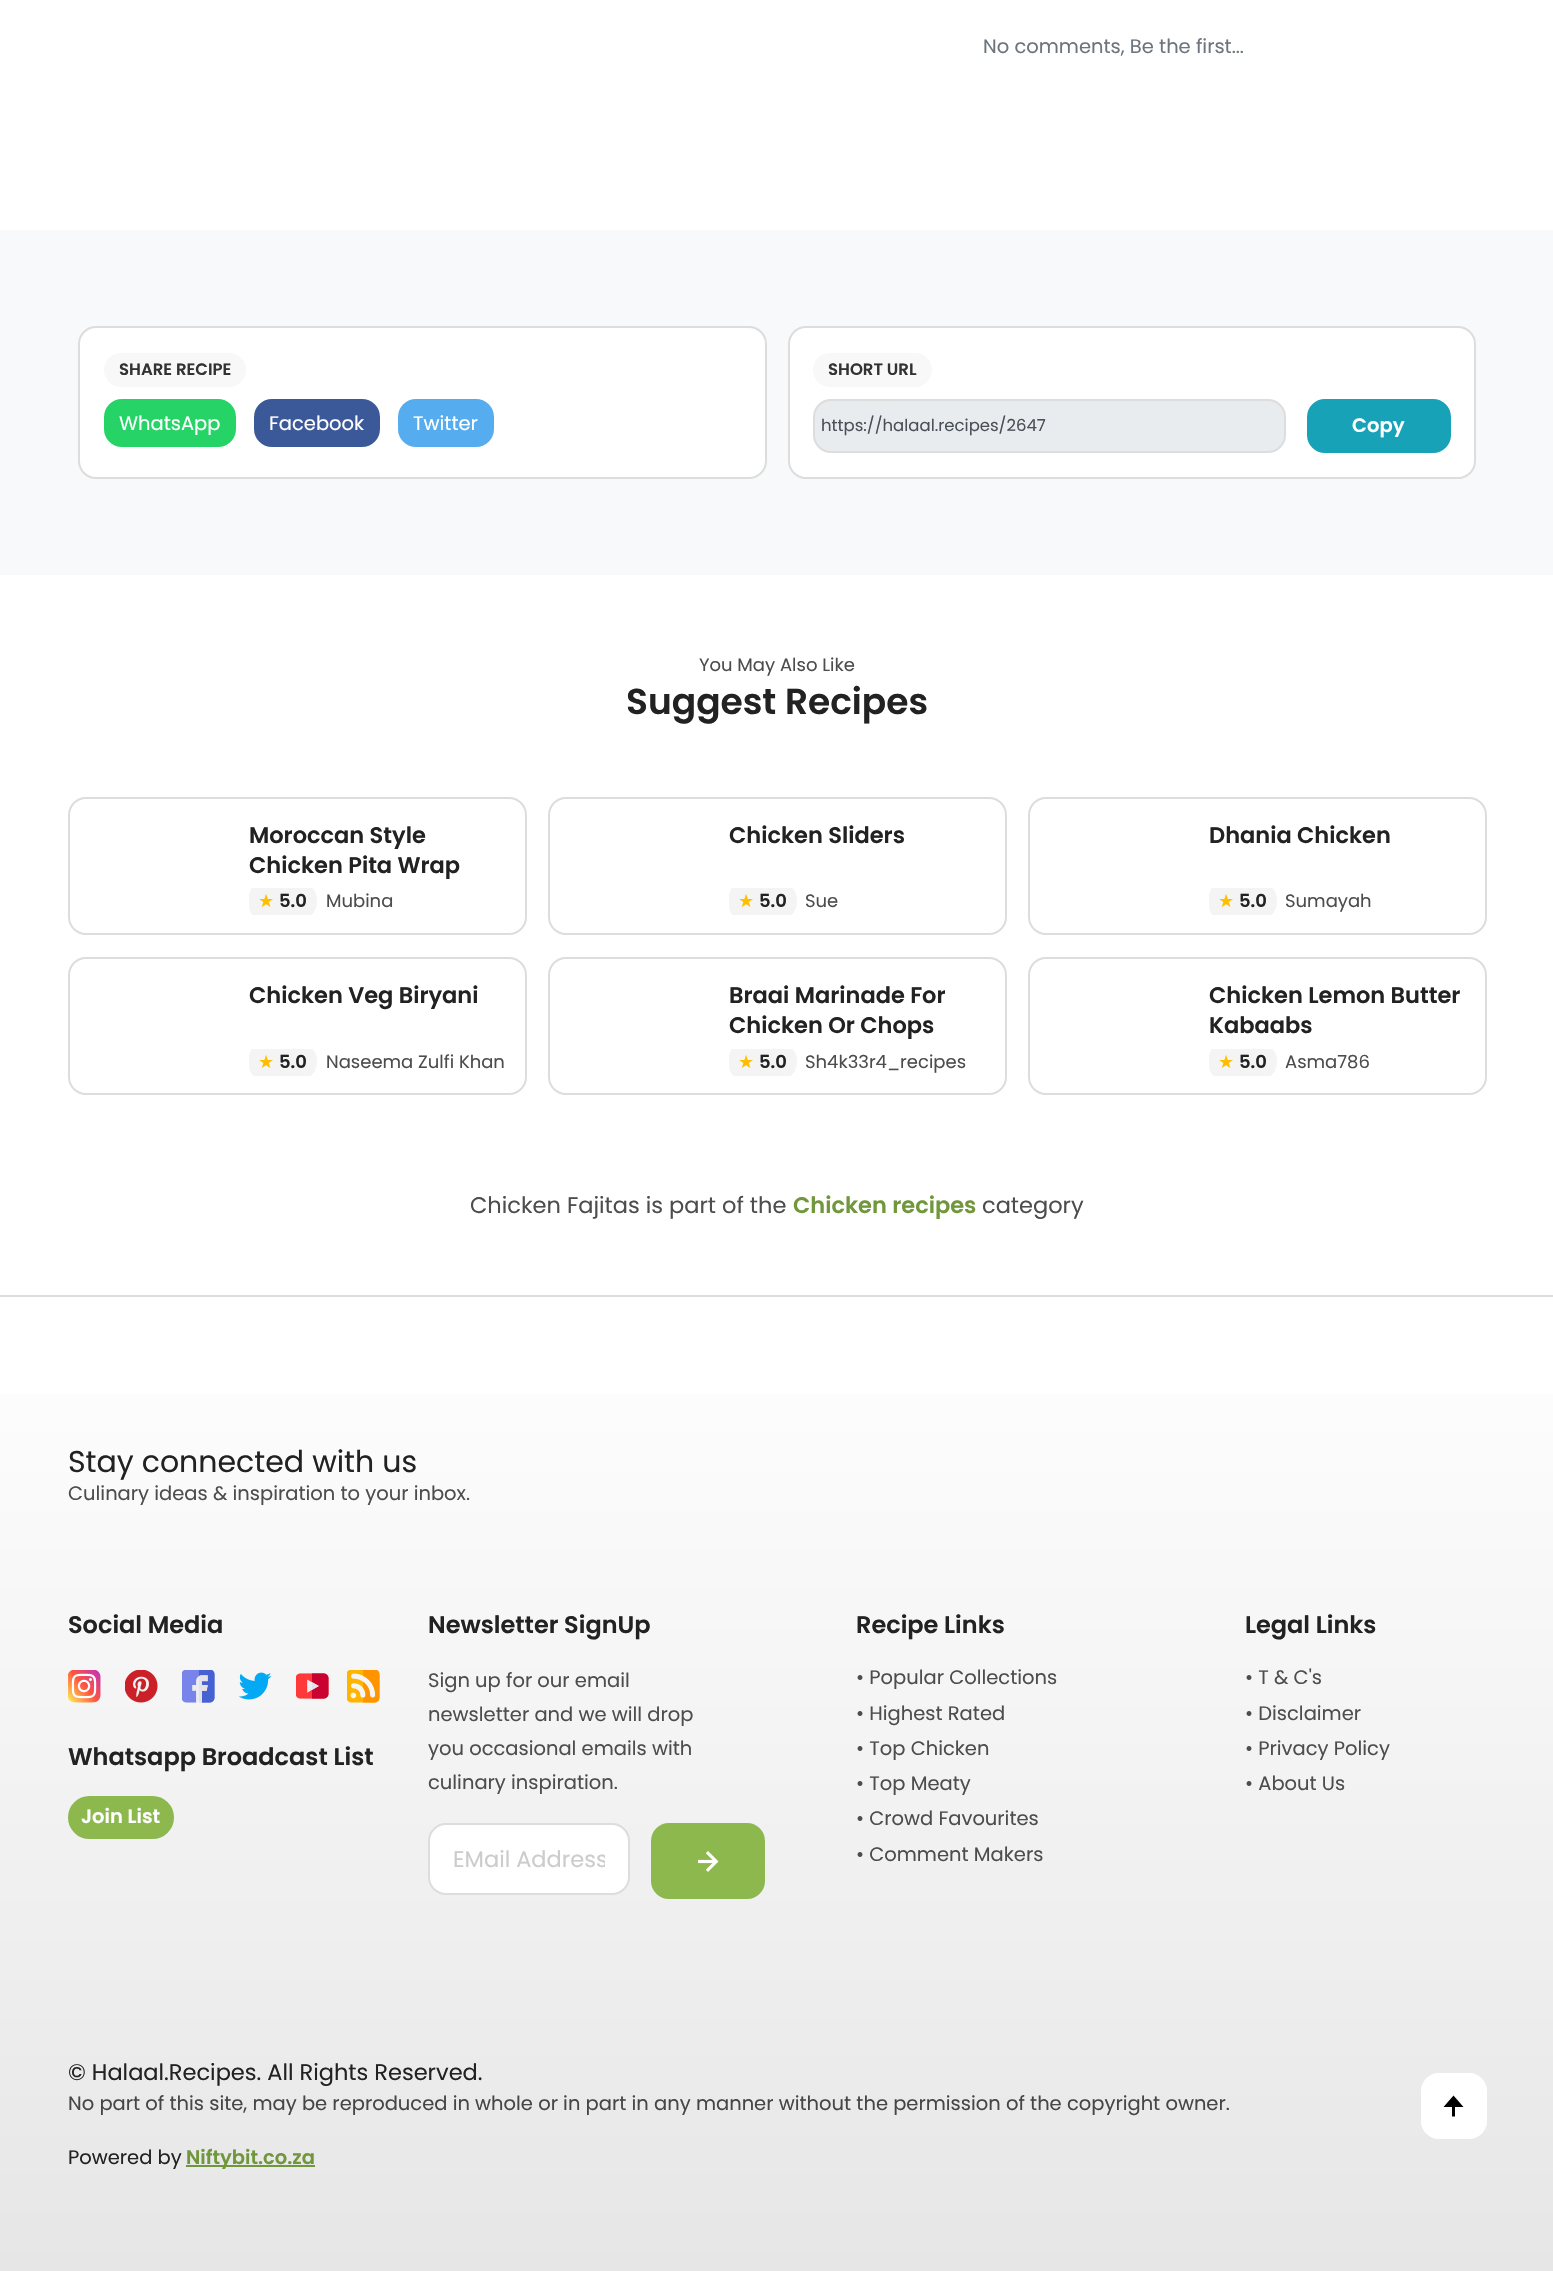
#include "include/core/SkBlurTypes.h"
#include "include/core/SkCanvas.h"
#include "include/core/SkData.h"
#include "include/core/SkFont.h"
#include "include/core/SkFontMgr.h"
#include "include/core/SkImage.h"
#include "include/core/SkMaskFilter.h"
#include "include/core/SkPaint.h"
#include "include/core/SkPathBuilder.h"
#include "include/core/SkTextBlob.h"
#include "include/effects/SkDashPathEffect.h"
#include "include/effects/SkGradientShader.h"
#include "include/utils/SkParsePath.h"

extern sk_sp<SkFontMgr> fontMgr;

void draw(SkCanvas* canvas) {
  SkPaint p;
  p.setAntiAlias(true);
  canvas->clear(SK_ColorWHITE);
  p.setColor(SkColorSetRGB(248, 249, 250));
  canvas->drawRect(SkRect::MakeLTRB(0, 230, 1553, 575), p);
  p.setColor(SK_ColorWHITE);
  canvas->drawRoundRect(SkRect::MakeLTRB(79, 327, 766, 478), 17, 17, p);
  p.setStyle(SkPaint::kStroke_Style);
  p.setStrokeWidth(2);
  p.setColor(SkColorSetRGB(221, 221, 221));
  canvas->drawRoundRect(SkRect::MakeLTRB(79, 327, 766, 478), 17, 17, p);
  p.setStyle(SkPaint::kFill_Style);
  p.setColor(SkColorSetRGB(248, 248, 248));
  canvas->drawRoundRect(SkRect::MakeLTRB(104, 353, 246, 387), 17, 17, p);
  p.setColor(SkColorSetRGB(37, 211, 102));
  canvas->drawRoundRect(SkRect::MakeLTRB(104, 399, 236, 447), 18, 18, p);
  p.setColor(SkColorSetRGB(59, 89, 152));
  canvas->drawRoundRect(SkRect::MakeLTRB(254, 399, 380, 447), 18, 18, p);
  p.setColor(SkColorSetRGB(85, 172, 238));
  canvas->drawRoundRect(SkRect::MakeLTRB(398, 399, 494, 447), 18, 18, p);
  p.setColor(SK_ColorWHITE);
  canvas->drawRoundRect(SkRect::MakeLTRB(789, 327, 1475, 478), 17, 17, p);
  p.setStyle(SkPaint::kStroke_Style);
  p.setColor(SkColorSetRGB(221, 221, 221));
  canvas->drawRoundRect(SkRect::MakeLTRB(789, 327, 1475, 478), 17, 17, p);
  p.setStyle(SkPaint::kFill_Style);
  p.setColor(SkColorSetRGB(248, 248, 248));
  canvas->drawRoundRect(SkRect::MakeLTRB(813, 353, 932, 387), 17, 17, p);
  p.setColor(SkColorSetRGB(233, 236, 239));
  canvas->drawRoundRect(SkRect::MakeLTRB(814, 400, 1285, 452), 17, 17, p);
  p.setStyle(SkPaint::kStroke_Style);
  p.setColor(SkColorSetRGB(221, 221, 221));
  canvas->drawRoundRect(SkRect::MakeLTRB(814, 400, 1285, 452), 17, 17, p);
  p.setStyle(SkPaint::kFill_Style);
  p.setColor(SkColorSetRGB(23, 162, 184));
  canvas->drawRoundRect(SkRect::MakeLTRB(1308, 400, 1450, 452), 17, 17, p);
  p.setStyle(SkPaint::kStroke_Style);
  canvas->drawRoundRect(SkRect::MakeLTRB(1308, 400, 1450, 452), 17, 17, p);
  p.setColor(SkColorSetRGB(221, 221, 221));
  canvas->drawRoundRect(SkRect::MakeLTRB(69, 798, 526, 934), 17, 17, p);
  canvas->save();
  canvas->clipRect(SkRect::MakeLTRB(249, 888, 510, 915));
  p.setStyle(SkPaint::kFill_Style);
  p.setColor(SkColorSetRGB(244, 244, 244));
  canvas->drawPath(SkPathBuilder().moveTo(264, 882).lineTo(279, 882).lineTo(279, 920).lineTo(264, 920).cubicTo(255.5f, 920, 249, 913.5f, 249, 905).lineTo(249, 897).cubicTo(249, 888.5f, 255.5f, 882, 264, 882).close().detach(), p);
  canvas->drawPath(SkPathBuilder().moveTo(279, 882).lineTo(299, 882).cubicTo(309, 882, 317, 890, 317, 900).lineTo(317, 902).cubicTo(317, 912, 309, 920, 299, 920).lineTo(279, 920).close().detach(), p);
  canvas->restore();
  p.setStyle(SkPaint::kStroke_Style);
  p.setColor(SkColorSetRGB(221, 221, 221));
  canvas->drawRoundRect(SkRect::MakeLTRB(549, 798, 1006, 934), 17, 17, p);
  canvas->save();
  canvas->clipRect(SkRect::MakeLTRB(729, 888, 990, 915));
  p.setStyle(SkPaint::kFill_Style);
  p.setColor(SkColorSetRGB(244, 244, 244));
  canvas->drawPath(SkPathBuilder().moveTo(744, 882).lineTo(759, 882).lineTo(759, 920).lineTo(744, 920).cubicTo(735.5f, 920, 729, 913.5f, 729, 905).lineTo(729, 897).cubicTo(729, 888.5f, 735.5f, 882, 744, 882).close().detach(), p);
  canvas->drawPath(SkPathBuilder().moveTo(759, 882).lineTo(779, 882).cubicTo(789, 882, 797, 890, 797, 900).lineTo(797, 902).cubicTo(797, 912, 789, 920, 779, 920).lineTo(759, 920).close().detach(), p);
  canvas->restore();
  p.setStyle(SkPaint::kStroke_Style);
  p.setColor(SkColorSetRGB(221, 221, 221));
  canvas->drawRoundRect(SkRect::MakeLTRB(1029, 798, 1486, 934), 17, 17, p);
  canvas->save();
  canvas->clipRect(SkRect::MakeLTRB(1209, 888, 1470, 915));
  p.setStyle(SkPaint::kFill_Style);
  p.setColor(SkColorSetRGB(244, 244, 244));
  canvas->drawPath(SkPathBuilder().moveTo(1224, 882).lineTo(1239, 882).lineTo(1239, 920).lineTo(1224, 920).cubicTo(1215.5f, 920, 1209, 913.5f, 1209, 905).lineTo(1209, 897).cubicTo(1209, 888.5f, 1215.5f, 882, 1224, 882).close().detach(), p);
  canvas->drawPath(SkPathBuilder().moveTo(1239, 882).lineTo(1259, 882).cubicTo(1269, 882, 1277, 890, 1277, 900).lineTo(1277, 902).cubicTo(1277, 912, 1269, 920, 1259, 920).lineTo(1239, 920).close().detach(), p);
  canvas->restore();
  p.setStyle(SkPaint::kStroke_Style);
  p.setColor(SkColorSetRGB(221, 221, 221));
  canvas->drawRoundRect(SkRect::MakeLTRB(69, 958, 526, 1094), 17, 17, p);
  canvas->save();
  canvas->clipRect(SkRect::MakeLTRB(249, 1049, 510, 1076));
  p.setStyle(SkPaint::kFill_Style);
  p.setColor(SkColorSetRGB(244, 244, 244));
  canvas->drawPath(SkPathBuilder().moveTo(264, 1043).lineTo(279, 1043).lineTo(279, 1080).lineTo(264, 1080).cubicTo(255.5f, 1080, 249, 1073.5f, 249, 1065).lineTo(249, 1058).cubicTo(249, 1049.5f, 255.5f, 1043, 264, 1043).close().detach(), p);
  canvas->drawPath(SkPathBuilder().moveTo(279, 1043).lineTo(299, 1043).cubicTo(309, 1043, 317, 1051, 317, 1061).lineTo(317, 1062).cubicTo(317, 1072, 309, 1080, 299, 1080).lineTo(279, 1080).close().detach(), p);
  canvas->restore();
  p.setStyle(SkPaint::kStroke_Style);
  p.setColor(SkColorSetRGB(221, 221, 221));
  canvas->drawRoundRect(SkRect::MakeLTRB(549, 958, 1006, 1094), 17, 17, p);
  canvas->save();
  canvas->clipRect(SkRect::MakeLTRB(729, 1049, 990, 1076));
  p.setStyle(SkPaint::kFill_Style);
  p.setColor(SkColorSetRGB(244, 244, 244));
  canvas->drawPath(SkPathBuilder().moveTo(744, 1043).lineTo(759, 1043).lineTo(759, 1080).lineTo(744, 1080).cubicTo(735.5f, 1080, 729, 1073.5f, 729, 1065).lineTo(729, 1058).cubicTo(729, 1049.5f, 735.5f, 1043, 744, 1043).close().detach(), p);
  canvas->drawPath(SkPathBuilder().moveTo(759, 1043).lineTo(779, 1043).cubicTo(789, 1043, 797, 1051, 797, 1061).lineTo(797, 1062).cubicTo(797, 1072, 789, 1080, 779, 1080).lineTo(759, 1080).close().detach(), p);
  canvas->restore();
  p.setStyle(SkPaint::kStroke_Style);
  p.setColor(SkColorSetRGB(221, 221, 221));
  canvas->drawRoundRect(SkRect::MakeLTRB(1029, 958, 1486, 1094), 17, 17, p);
  canvas->save();
  canvas->clipRect(SkRect::MakeLTRB(1209, 1049, 1470, 1076));
  p.setStyle(SkPaint::kFill_Style);
  p.setColor(SkColorSetRGB(244, 244, 244));
  canvas->drawPath(SkPathBuilder().moveTo(1224, 1043).lineTo(1239, 1043).lineTo(1239, 1080).lineTo(1224, 1080).cubicTo(1215.5f, 1080, 1209, 1073.5f, 1209, 1065).lineTo(1209, 1058).cubicTo(1209, 1049.5f, 1215.5f, 1043, 1224, 1043).close().detach(), p);
  canvas->drawPath(SkPathBuilder().moveTo(1239, 1043).lineTo(1259, 1043).cubicTo(1269, 1043, 1277, 1051, 1277, 1061).lineTo(1277, 1062).cubicTo(1277, 1072, 1269, 1080, 1259, 1080).lineTo(1239, 1080).close().detach(), p);
  canvas->restore();
  {
    const SkColor colors[] = {SK_ColorWHITE, SkColorSetRGB(230, 230, 230)};
    const float stops[] = {0, 1};
    const SkPoint ends[] = {{777, 1296}, {777, 2271}};
    p.setShader(SkGradientShader::MakeLinear(ends, colors, stops, 2, SkTileMode::kClamp));
    p.setAlpha(255);
  }
  canvas->drawRect(SkRect::MakeLTRB(0, 1394, 1553, 2271), p);
  p.setShader(nullptr);
  p.setColor(SkColorSetRGB(221, 221, 221));
  canvas->drawRect(SkRect::MakeLTRB(0, 1295, 1553, 1297), p);
  canvas->drawImageRect(SkImages::DeferredFromEncodedData(SkData::MakeFromFileName("images/1.png")), SkRect::MakeLTRB(68, 1670, 101, 1703), SkSamplingOptions());
  canvas->drawImageRect(SkImages::DeferredFromEncodedData(SkData::MakeFromFileName("images/2.png")), SkRect::MakeLTRB(125, 1670, 158, 1703), SkSamplingOptions());
  canvas->drawImageRect(SkImages::DeferredFromEncodedData(SkData::MakeFromFileName("images/3.png")), SkRect::MakeLTRB(182, 1670, 215, 1703), SkSamplingOptions());
  canvas->drawImageRect(SkImages::DeferredFromEncodedData(SkData::MakeFromFileName("images/4.png")), SkRect::MakeLTRB(239, 1672, 272, 1700), SkSamplingOptions());
  canvas->drawImageRect(SkImages::DeferredFromEncodedData(SkData::MakeFromFileName("images/5.png")), SkRect::MakeLTRB(296, 1673, 329, 1699), SkSamplingOptions());
  canvas->drawImageRect(SkImages::DeferredFromEncodedData(SkData::MakeFromFileName("images/6.png")), SkRect::MakeLTRB(347, 1670, 380, 1703), SkSamplingOptions());
  p.setColor(SkColorSetRGB(140, 184, 78));
  canvas->drawRoundRect(SkRect::MakeLTRB(69, 1797, 173, 1838), 20.5f, 20.5f, p);
  p.setStyle(SkPaint::kStroke_Style);
  canvas->drawRoundRect(SkRect::MakeLTRB(69, 1797, 173, 1838), 20.5f, 20.5f, p);
  p.setStyle(SkPaint::kFill_Style);
  p.setColor(SK_ColorWHITE);
  canvas->drawRoundRect(SkRect::MakeLTRB(429, 1824, 629, 1894), 17, 17, p);
  p.setStyle(SkPaint::kStroke_Style);
  p.setColor(SkColorSetRGB(221, 221, 221));
  canvas->drawRoundRect(SkRect::MakeLTRB(429, 1824, 629, 1894), 17, 17, p);
  p.setStyle(SkPaint::kFill_Style);
  p.setColor(SkColorSetRGB(140, 184, 78));
  canvas->drawRoundRect(SkRect::MakeLTRB(652, 1824, 764, 1898), 17, 17, p);
  p.setStyle(SkPaint::kStroke_Style);
  canvas->drawRoundRect(SkRect::MakeLTRB(652, 1824, 764, 1898), 17, 17, p);
  canvas->drawImageRect(SkImages::DeferredFromEncodedData(SkData::MakeFromFileName("images/7.png")), SkRect::MakeLTRB(698, 1851, 719, 1872), SkSamplingOptions());
  p.setStyle(SkPaint::kFill_Style);
  p.setColor(SkColorSetRGB(113, 151, 60));
  canvas->drawRect(SkRect::MakeLTRB(186, 2165, 315, 2167), p);
  p.setColor(SK_ColorWHITE);
  canvas->drawRoundRect(SkRect::MakeLTRB(1421, 2073, 1487, 2139), 18, 18, p);
  canvas->drawPath(SkPathBuilder(SkPathFillType::kEvenOdd).moveTo(1421, 2091).lineTo(1421, 2121).lineTo(1422, 2127).lineTo(1422, 2085).close().moveTo(1439, 2073).lineTo(1433, 2074).lineTo(1475, 2074).lineTo(1469, 2073).close().moveTo(1487, 2091).lineTo(1486, 2085).lineTo(1486, 2127).lineTo(1487, 2121).close().moveTo(1469, 2139).lineTo(1475, 2138).lineTo(1433, 2138).lineTo(1439, 2139).close().detach(), p);
  p.setColor(SK_ColorBLACK);
  canvas->drawPath(SkPathBuilder().moveTo(1455, 2116.5f).lineTo(1455, 2107).lineTo(1463.5f, 2107).lineTo(1453.5f, 2095.5f).lineTo(1443.5f, 2107).lineTo(1452, 2107).lineTo(1452, 2116.5f).close().detach(), p);
  SkFont font1(fontMgr->matchFamilyStyle("Poppins", SkFontStyle::Normal()), 19.5f);
  font1.setSubpixel(true);
  p.setColor(SkColorSetRGB(108, 117, 125));
  canvas->drawString("No comments, Be the first...", 983, 53, font1, p);
  SkFont font2(fontMgr->matchFamilyStyle("Poppins", SkFontStyle(600, SkFontStyle::kNormal_Width, SkFontStyle::kUpright_Slant)), 16.5f);
  font2.setSubpixel(true);
  p.setColor(SkColorSetRGB(51, 51, 51));
  canvas->drawString("SHARE RECIPE", 119, 375, font2, p);
  p.setColor(SK_ColorWHITE);
  canvas->drawString("WhatsApp", 119, 430, font1, p);
  canvas->drawString("Facebook", 269, 430, font1, p);
  canvas->drawString("Twitter", 413, 430, font1, p);
  p.setColor(SkColorSetRGB(51, 51, 51));
  canvas->drawString("SHORT URL", 828, 375, font2, p);
  SkFont font3(fontMgr->matchFamilyStyle("Poppins", SkFontStyle::Normal()), 16.5f);
  font3.setSubpixel(true);
  p.setColor(SkColorSetRGB(73, 80, 87));
  canvas->drawString("https://halaal.recipes/2647", 821, 431, font3, p);
  SkFont font4(fontMgr->matchFamilyStyle("Poppins", SkFontStyle(600, SkFontStyle::kNormal_Width, SkFontStyle::kUpright_Slant)), 19.5f);
  font4.setSubpixel(true);
  p.setColor(SK_ColorWHITE);
  canvas->drawString("Copy", 1352, 432, font4, p);
  SkFont font5(fontMgr->matchFamilyStyle("Poppins", SkFontStyle::Normal()), 18);
  font5.setSubpixel(true);
  p.setColor(SkColorSetRGB(77, 77, 77));
  canvas->drawString("You May Also Like", 699, 671, font5, p);
  SkFont font6(fontMgr->matchFamilyStyle("Poppins", SkFontStyle(600, SkFontStyle::kNormal_Width, SkFontStyle::kUpright_Slant)), 36);
  font6.setSubpixel(true);
  p.setColor(SkColorSetRGB(34, 34, 34));
  canvas->drawString("Suggest Recipes", 626, 714, font6, p);
  SkFont font7(fontMgr->matchFamilyStyle("Poppins", SkFontStyle(600, SkFontStyle::kNormal_Width, SkFontStyle::kUpright_Slant)), 22.5f);
  font7.setSubpixel(true);
  canvas->drawString("Moroccan Style", 249, 843, font7, p);
  canvas->drawString("Chicken Pita Wrap", 249, 873, font7, p);
  SkFont font8(fontMgr->matchFamilyStyle("DejaVu Sans", SkFontStyle::Normal()), 18);
  font8.setSubpixel(true);
  p.setColor(SkColorSetRGB(255, 191, 0));
  canvas->drawString("★", 258, 907, font8, p);
  SkFont font9(fontMgr->matchFamilyStyle("Poppins", SkFontStyle(600, SkFontStyle::kNormal_Width, SkFontStyle::kUpright_Slant)), 18);
  font9.setSubpixel(true);
  p.setColor(SkColorSetRGB(34, 34, 34));
  canvas->drawString("5.0", 279, 907, font9, p);
  p.setColor(SkColorSetRGB(77, 77, 77));
  canvas->drawString("Mubina", 326, 907, font5, p);
  p.setColor(SkColorSetRGB(34, 34, 34));
  canvas->drawString("Chicken Sliders", 729, 843, font7, p);
  p.setColor(SkColorSetRGB(255, 191, 0));
  canvas->drawString("★", 738, 907, font8, p);
  p.setColor(SkColorSetRGB(34, 34, 34));
  canvas->drawString("5.0", 759, 907, font9, p);
  p.setColor(SkColorSetRGB(77, 77, 77));
  canvas->drawString("Sue", 805, 907, font5, p);
  p.setColor(SkColorSetRGB(34, 34, 34));
  canvas->drawString("Dhania Chicken", 1209, 843, font7, p);
  p.setColor(SkColorSetRGB(255, 191, 0));
  canvas->drawString("★", 1218, 907, font8, p);
  p.setColor(SkColorSetRGB(34, 34, 34));
  canvas->drawString("5.0", 1239, 907, font9, p);
  p.setColor(SkColorSetRGB(77, 77, 77));
  canvas->drawString("Sumayah", 1285, 907, font5, p);
  p.setColor(SkColorSetRGB(34, 34, 34));
  canvas->drawString("Chicken Veg Biryani", 249, 1003, font7, p);
  p.setColor(SkColorSetRGB(255, 191, 0));
  canvas->drawString("★", 258, 1068, font8, p);
  p.setColor(SkColorSetRGB(34, 34, 34));
  canvas->drawString("5.0", 279, 1068, font9, p);
  p.setColor(SkColorSetRGB(77, 77, 77));
  canvas->drawString("Naseema Zulfi Khan", 326, 1068, font5, p);
  p.setColor(SkColorSetRGB(34, 34, 34));
  canvas->drawString("Braai Marinade For", 729, 1003, font7, p);
  canvas->drawString("Chicken Or Chops", 729, 1033, font7, p);
  p.setColor(SkColorSetRGB(255, 191, 0));
  canvas->drawString("★", 738, 1068, font8, p);
  p.setColor(SkColorSetRGB(34, 34, 34));
  canvas->drawString("5.0", 759, 1068, font9, p);
  p.setColor(SkColorSetRGB(77, 77, 77));
  canvas->drawString("Sh4k33r4_recipes", 805, 1068, font5, p);
  p.setColor(SkColorSetRGB(34, 34, 34));
  canvas->drawString("Chicken Lemon Butter", 1209, 1003, font7, p);
  canvas->drawString("Kabaabs", 1209, 1033, font7, p);
  p.setColor(SkColorSetRGB(255, 191, 0));
  canvas->drawString("★", 1218, 1068, font8, p);
  p.setColor(SkColorSetRGB(34, 34, 34));
  canvas->drawString("5.0", 1239, 1068, font9, p);
  p.setColor(SkColorSetRGB(77, 77, 77));
  canvas->drawString("Asma786", 1285, 1068, font5, p);
  SkFont font10(fontMgr->matchFamilyStyle("Poppins", SkFontStyle::Normal()), 22.5f);
  font10.setSubpixel(true);
  canvas->drawString("Chicken Fajitas is part of the", 470, 1213, font10, p);
  p.setColor(SkColorSetRGB(113, 151, 60));
  canvas->drawString("Chicken recipes", 793, 1213, font7, p);
  p.setColor(SkColorSetRGB(77, 77, 77));
  canvas->drawString("category", 982, 1213, font10, p);
  SkFont font11(fontMgr->matchFamilyStyle("Poppins", SkFontStyle::Normal()), 30);
  font11.setSubpixel(true);
  p.setColor(SkColorSetRGB(34, 34, 34));
  canvas->drawString("Stay connected with us", 68, 1472, font11, p);
  p.setColor(SkColorSetRGB(77, 77, 77));
  canvas->drawString("Culinary ideas & inspiration to your inbox.", 68, 1500, font1, p);
  SkFont font12(fontMgr->matchFamilyStyle("Poppins", SkFontStyle(600, SkFontStyle::kNormal_Width, SkFontStyle::kUpright_Slant)), 24);
  font12.setSubpixel(true);
  p.setColor(SkColorSetRGB(34, 34, 34));
  canvas->drawString("Social Media", 68, 1633, font12, p);
  canvas->drawString("Whatsapp Broadcast List", 68, 1765, font12, p);
  p.setColor(SK_ColorWHITE);
  canvas->drawString("Join List", 81, 1823, font4, p);
  p.setColor(SkColorSetRGB(34, 34, 34));
  canvas->drawString("Newsletter SignUp", 428, 1633, font12, p);
  p.setColor(SkColorSetRGB(77, 77, 77));
  canvas->drawString("Sign up for our email", 428, 1687, font1, p);
  canvas->drawString("newsletter and we will drop", 428, 1721, font1, p);
  canvas->drawString("you occasional emails with", 428, 1755, font1, p);
  canvas->drawString("culinary inspiration.", 428, 1789, font1, p);
  canvas->save();
  canvas->clipRect(SkRect::MakeLTRB(453, 1841, 605, 1875));
  p.setColor(SkColorSetRGB(204, 204, 204));
  canvas->drawString("EMail Address", 453, 1867, font10, p);
  canvas->restore();
  p.setColor(SkColorSetRGB(34, 34, 34));
  canvas->drawString("Recipe Links", 856, 1633, font12, p);
  p.setColor(SkColorSetRGB(77, 77, 77));
  canvas->drawString("• Popular Collections", 856, 1684, font1, p);
  canvas->drawString("• Highest Rated", 856, 1720, font1, p);
  canvas->drawString("• Top Chicken", 856, 1755, font1, p);
  canvas->drawString("• Top Meaty", 856, 1790, font1, p);
  canvas->drawString("• Crowd Favourites", 856, 1825, font1, p);
  canvas->drawString("• Comment Makers", 856, 1861, font1, p);
  p.setColor(SkColorSetRGB(34, 34, 34));
  canvas->drawString("Legal Links", 1245, 1633, font12, p);
  p.setColor(SkColorSetRGB(77, 77, 77));
  canvas->drawString("• T & C's", 1245, 1684, font1, p);
  canvas->drawString("• Disclaimer", 1245, 1720, font1, p);
  canvas->drawString("• Privacy Policy", 1245, 1755, font1, p);
  canvas->drawString("• About Us", 1245, 1790, font1, p);
  p.setColor(SkColorSetRGB(34, 34, 34));
  canvas->drawString("© Halaal.Recipes. All Rights Reserved.", 68, 2080, font10, p);
  p.setColor(SkColorSetRGB(70, 70, 70));
  canvas->drawString("No part of this site, may be reproduced in whole or in part in any manner without the permission of the copyright owner.", 68, 2110, font1, p);
  p.setColor(SkColorSetRGB(34, 34, 34));
  canvas->drawString("Powered by", 68, 2164, font1, p);
  p.setColor(SkColorSetRGB(113, 151, 60));
  canvas->drawString("Niftybit.co.za", 186, 2164, font4, p);
}
